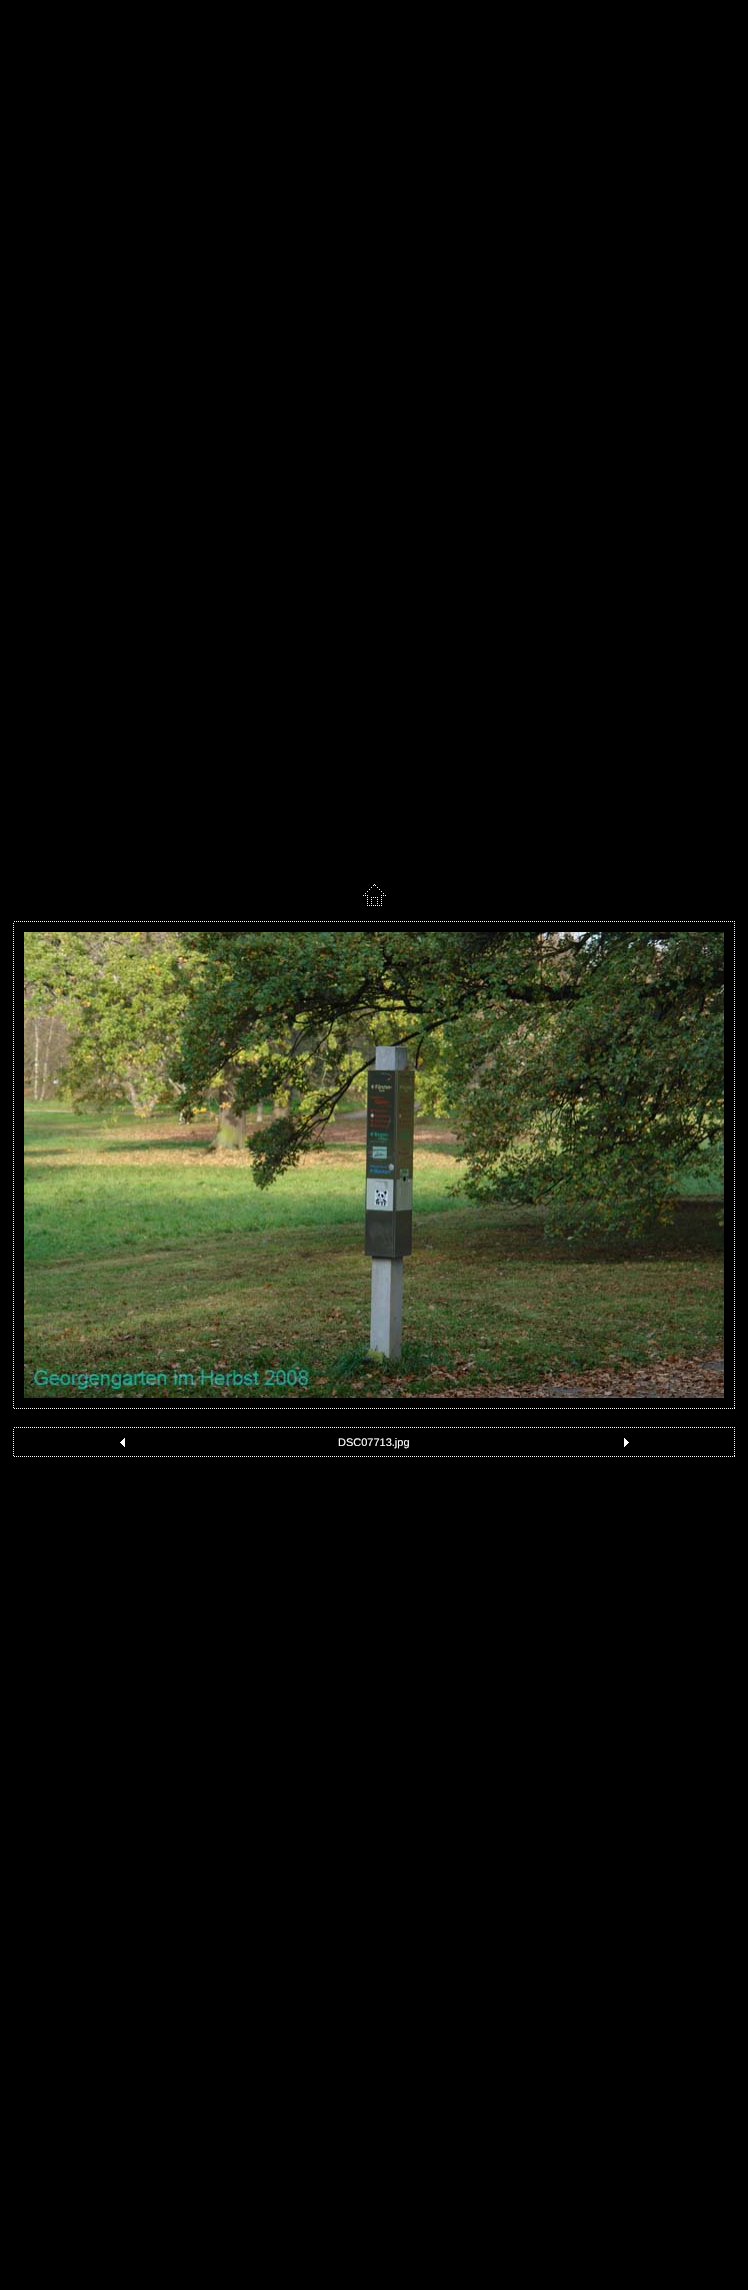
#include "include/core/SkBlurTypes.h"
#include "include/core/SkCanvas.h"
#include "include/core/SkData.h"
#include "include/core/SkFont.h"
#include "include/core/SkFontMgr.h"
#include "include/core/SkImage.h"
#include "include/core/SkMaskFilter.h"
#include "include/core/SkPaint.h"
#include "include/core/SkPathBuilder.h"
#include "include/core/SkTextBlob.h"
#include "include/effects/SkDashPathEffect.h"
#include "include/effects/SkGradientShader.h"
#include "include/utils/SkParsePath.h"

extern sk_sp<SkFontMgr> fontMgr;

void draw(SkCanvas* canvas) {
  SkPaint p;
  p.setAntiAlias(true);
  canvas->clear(SK_ColorBLACK);
  canvas->drawImageRect(SkImages::DeferredFromEncodedData(SkData::MakeFromFileName("images/1.png")), SkRect::MakeLTRB(363, 884, 386, 906), SkSamplingOptions());
  canvas->drawImageRect(SkImages::DeferredFromEncodedData(SkData::MakeFromFileName("images/2.png")), SkRect::MakeLTRB(14, 921, 735, 922), SkSamplingOptions());
  canvas->drawImageRect(SkImages::DeferredFromEncodedData(SkData::MakeFromFileName("images/3.png")), SkRect::MakeLTRB(13, 923, 14, 1408), SkSamplingOptions());
  canvas->drawImageRect(SkImages::DeferredFromEncodedData(SkData::MakeFromFileName("images/4.png")), SkRect::MakeLTRB(24, 932, 724, 1398), SkSamplingOptions());
  canvas->drawImageRect(SkImages::DeferredFromEncodedData(SkData::MakeFromFileName("images/3.png")), SkRect::MakeLTRB(734, 923, 735, 1408), SkSamplingOptions());
  canvas->drawImageRect(SkImages::DeferredFromEncodedData(SkData::MakeFromFileName("images/2.png")), SkRect::MakeLTRB(14, 1408, 735, 1409), SkSamplingOptions());
  canvas->drawImageRect(SkImages::DeferredFromEncodedData(SkData::MakeFromFileName("images/2.png")), SkRect::MakeLTRB(14, 1427, 735, 1428), SkSamplingOptions());
  canvas->drawImageRect(SkImages::DeferredFromEncodedData(SkData::MakeFromFileName("images/5.png")), SkRect::MakeLTRB(13, 1429, 14, 1456), SkSamplingOptions());
  canvas->drawImageRect(SkImages::DeferredFromEncodedData(SkData::MakeFromFileName("images/6.png")), SkRect::MakeLTRB(120, 1438, 125, 1447), SkSamplingOptions());
  canvas->drawImageRect(SkImages::DeferredFromEncodedData(SkData::MakeFromFileName("images/7.png")), SkRect::MakeLTRB(624, 1438, 629, 1447), SkSamplingOptions());
  canvas->drawImageRect(SkImages::DeferredFromEncodedData(SkData::MakeFromFileName("images/5.png")), SkRect::MakeLTRB(734, 1429, 735, 1456), SkSamplingOptions());
  canvas->drawImageRect(SkImages::DeferredFromEncodedData(SkData::MakeFromFileName("images/2.png")), SkRect::MakeLTRB(14, 1456, 735, 1457), SkSamplingOptions());
  SkFont font1(fontMgr->matchFamilyStyle("Liberation Sans", SkFontStyle::Normal()), 11);
  font1.setSubpixel(true);
  p.setColor(SK_ColorWHITE);
  canvas->drawString("DSC07713.jpg", 338, 1446, font1, p);
}
